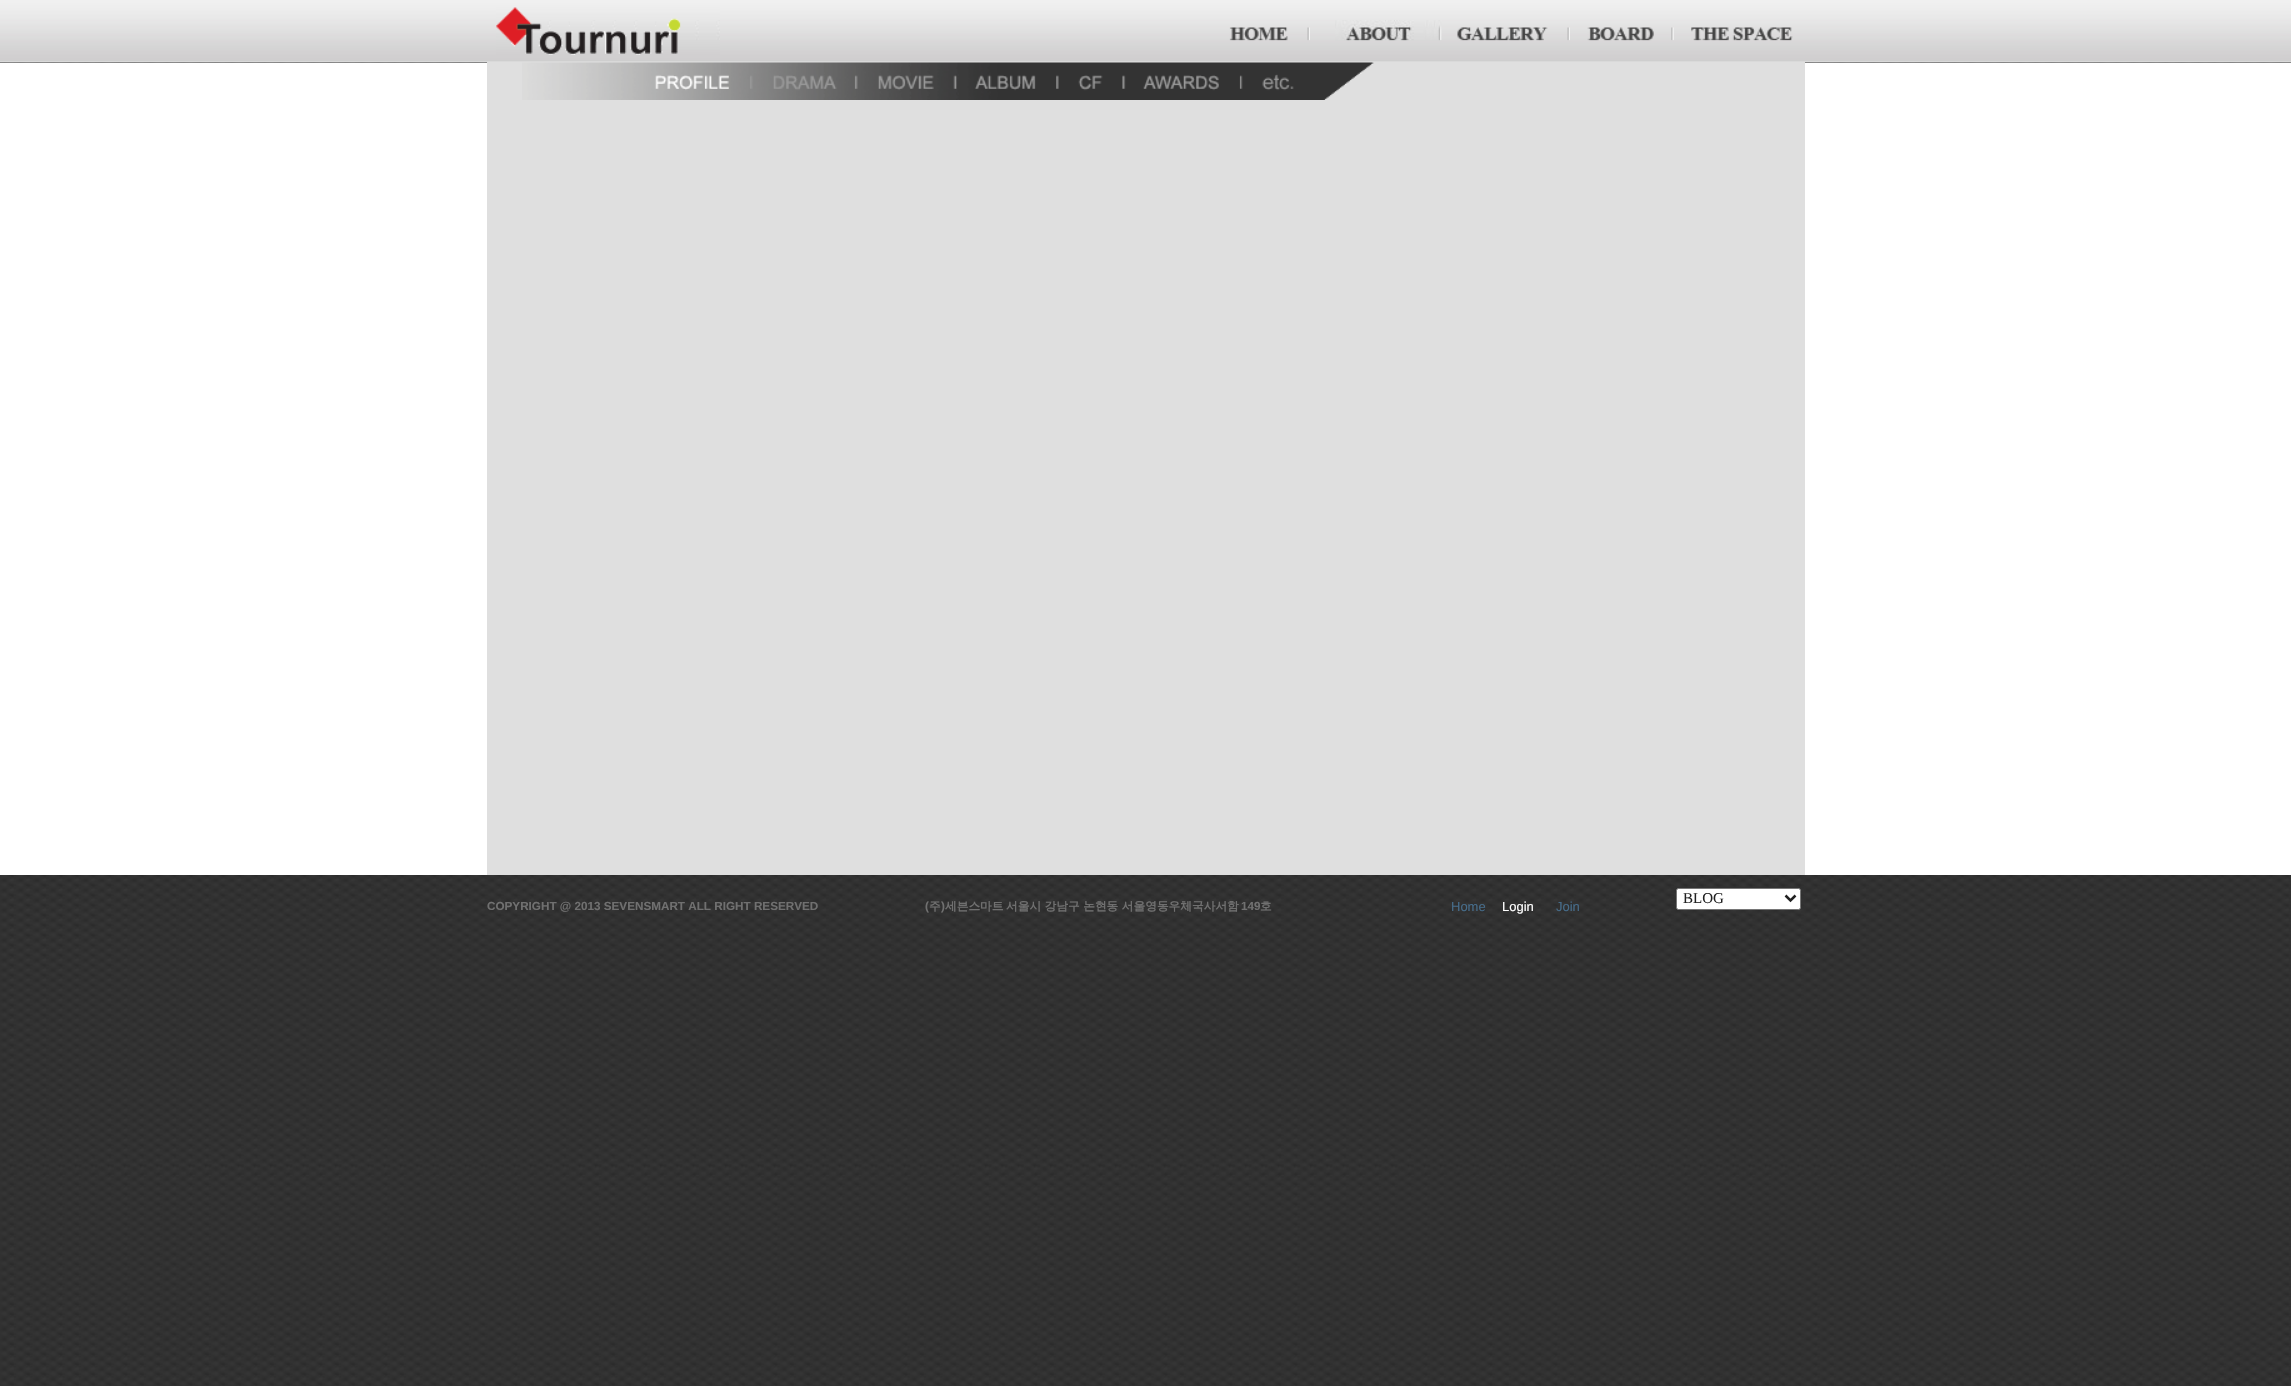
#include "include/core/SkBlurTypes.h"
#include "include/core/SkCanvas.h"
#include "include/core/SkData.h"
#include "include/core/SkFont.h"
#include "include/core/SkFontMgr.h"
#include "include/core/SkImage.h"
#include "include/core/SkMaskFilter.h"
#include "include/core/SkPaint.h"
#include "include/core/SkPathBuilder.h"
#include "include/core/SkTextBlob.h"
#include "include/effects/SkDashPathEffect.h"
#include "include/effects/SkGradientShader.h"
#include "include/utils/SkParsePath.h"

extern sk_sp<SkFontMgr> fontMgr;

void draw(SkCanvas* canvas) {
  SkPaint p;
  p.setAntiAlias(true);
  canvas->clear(SK_ColorWHITE);
  canvas->drawImageRect(SkImages::DeferredFromEncodedData(SkData::MakeFromFileName("images/1.png")), SkRect::MakeLTRB(0, 62, 2291, 1386), SkSamplingOptions());
  canvas->drawImageRect(SkImages::DeferredFromEncodedData(SkData::MakeFromFileName("images/2.png")), SkRect::MakeLTRB(0, 0, 2291, 63), SkSamplingOptions());
  canvas->drawImageRect(SkImages::DeferredFromEncodedData(SkData::MakeFromFileName("images/3.png")), SkRect::MakeLTRB(496, 7, 720, 55), SkSamplingOptions());
  canvas->drawImageRect(SkImages::DeferredFromEncodedData(SkData::MakeFromFileName("images/4.png")), SkRect::MakeLTRB(1229, 27, 1310, 41), SkSamplingOptions());
  canvas->drawImageRect(SkImages::DeferredFromEncodedData(SkData::MakeFromFileName("images/5.png")), SkRect::MakeLTRB(1335, 20, 1442, 41), SkSamplingOptions());
  canvas->drawImageRect(SkImages::DeferredFromEncodedData(SkData::MakeFromFileName("images/6.png")), SkRect::MakeLTRB(1457, 27, 1570, 41), SkSamplingOptions());
  canvas->drawImageRect(SkImages::DeferredFromEncodedData(SkData::MakeFromFileName("images/7.png")), SkRect::MakeLTRB(1587, 27, 1674, 41), SkSamplingOptions());
  canvas->drawImageRect(SkImages::DeferredFromEncodedData(SkData::MakeFromFileName("images/8.png")), SkRect::MakeLTRB(1691, 27, 1793, 41), SkSamplingOptions());
  p.setColor(SK_ColorWHITE);
  canvas->drawRect(SkRect::MakeLTRB(0, 63, 2291, 875), p);
  p.setColor(SkColorSetRGB(223, 223, 223));
  canvas->drawRect(SkRect::MakeLTRB(487, 62, 1805, 875), p);
  canvas->drawImageRect(SkImages::DeferredFromEncodedData(SkData::MakeFromFileName("images/9.png")), SkRect::MakeLTRB(522, 62, 1374, 100), SkSamplingOptions());
  p.setColor(SK_ColorWHITE);
  canvas->drawRoundRect(SkRect::MakeLTRB(1676.5f, 888.5f, 1800.5f, 909.5f), 2, 2, p);
  p.setStyle(SkPaint::kStroke_Style);
  p.setStrokeWidth(1);
  p.setColor(SkColorSetRGB(118, 118, 118));
  canvas->drawRoundRect(SkRect::MakeLTRB(1676.5f, 888.5f, 1800.5f, 909.5f), 2, 2, p);
  p.setStrokeWidth(2.5f);
  p.setColor(SkColorSetRGB(34, 34, 34));
  canvas->drawPath(SkPathBuilder().moveTo(1785.5f, 895.5f).lineTo(1790.5f, 900.5f).lineTo(1795.5f, 895.5f).detach(), p);
  SkFont font1(fontMgr->matchFamilyStyle("Liberation Serif", SkFontStyle::Normal()), 15);
  font1.setSubpixel(true);
  p.setStyle(SkPaint::kFill_Style);
  canvas->drawString("BLOG", 1683, 903, font1, p);
  SkFont font2(fontMgr->matchFamilyStyle("Liberation Sans", SkFontStyle::Bold()), 11.7f);
  font2.setSubpixel(true);
  p.setColor(SkColorSetRGB(112, 112, 112));
  canvas->drawString("COPYRIGHT @ 2013 SEVENSMART ALL RIGHT RESERVED", 487, 910, font2, p);
  canvas->drawString("(", 925, 910, font2, p);
  SkFont font3(fontMgr->matchFamilyStyle("WenQuanYi Zen Hei", SkFontStyle::Bold()), 11.7f);
  font3.setSubpixel(true);
  canvas->drawString("주", 929, 910, font3, p);
  canvas->drawString(")", 941, 910, font2, p);
  canvas->drawString("세븐스마트", 945, 910, font3, p);
  canvas->drawString("서울시 강남구 논현동 서울영동우체국사서함", 1006, 910, font3, p);
  canvas->drawString("149", 1241, 910, font2, p);
  canvas->drawString("호", 1260, 910, font3, p);
  SkFont font4(fontMgr->matchFamilyStyle("Liberation Sans", SkFontStyle::Normal()), 13);
  font4.setSubpixel(true);
  p.setColor(SkColorSetRGB(70, 108, 138));
  canvas->drawString("Home", 1451, 911, font4, p);
  p.setColor(SK_ColorWHITE);
  canvas->drawString("Login", 1502, 911, font4, p);
  p.setColor(SkColorSetRGB(70, 108, 138));
  canvas->drawString("Join", 1556, 911, font4, p);
}
